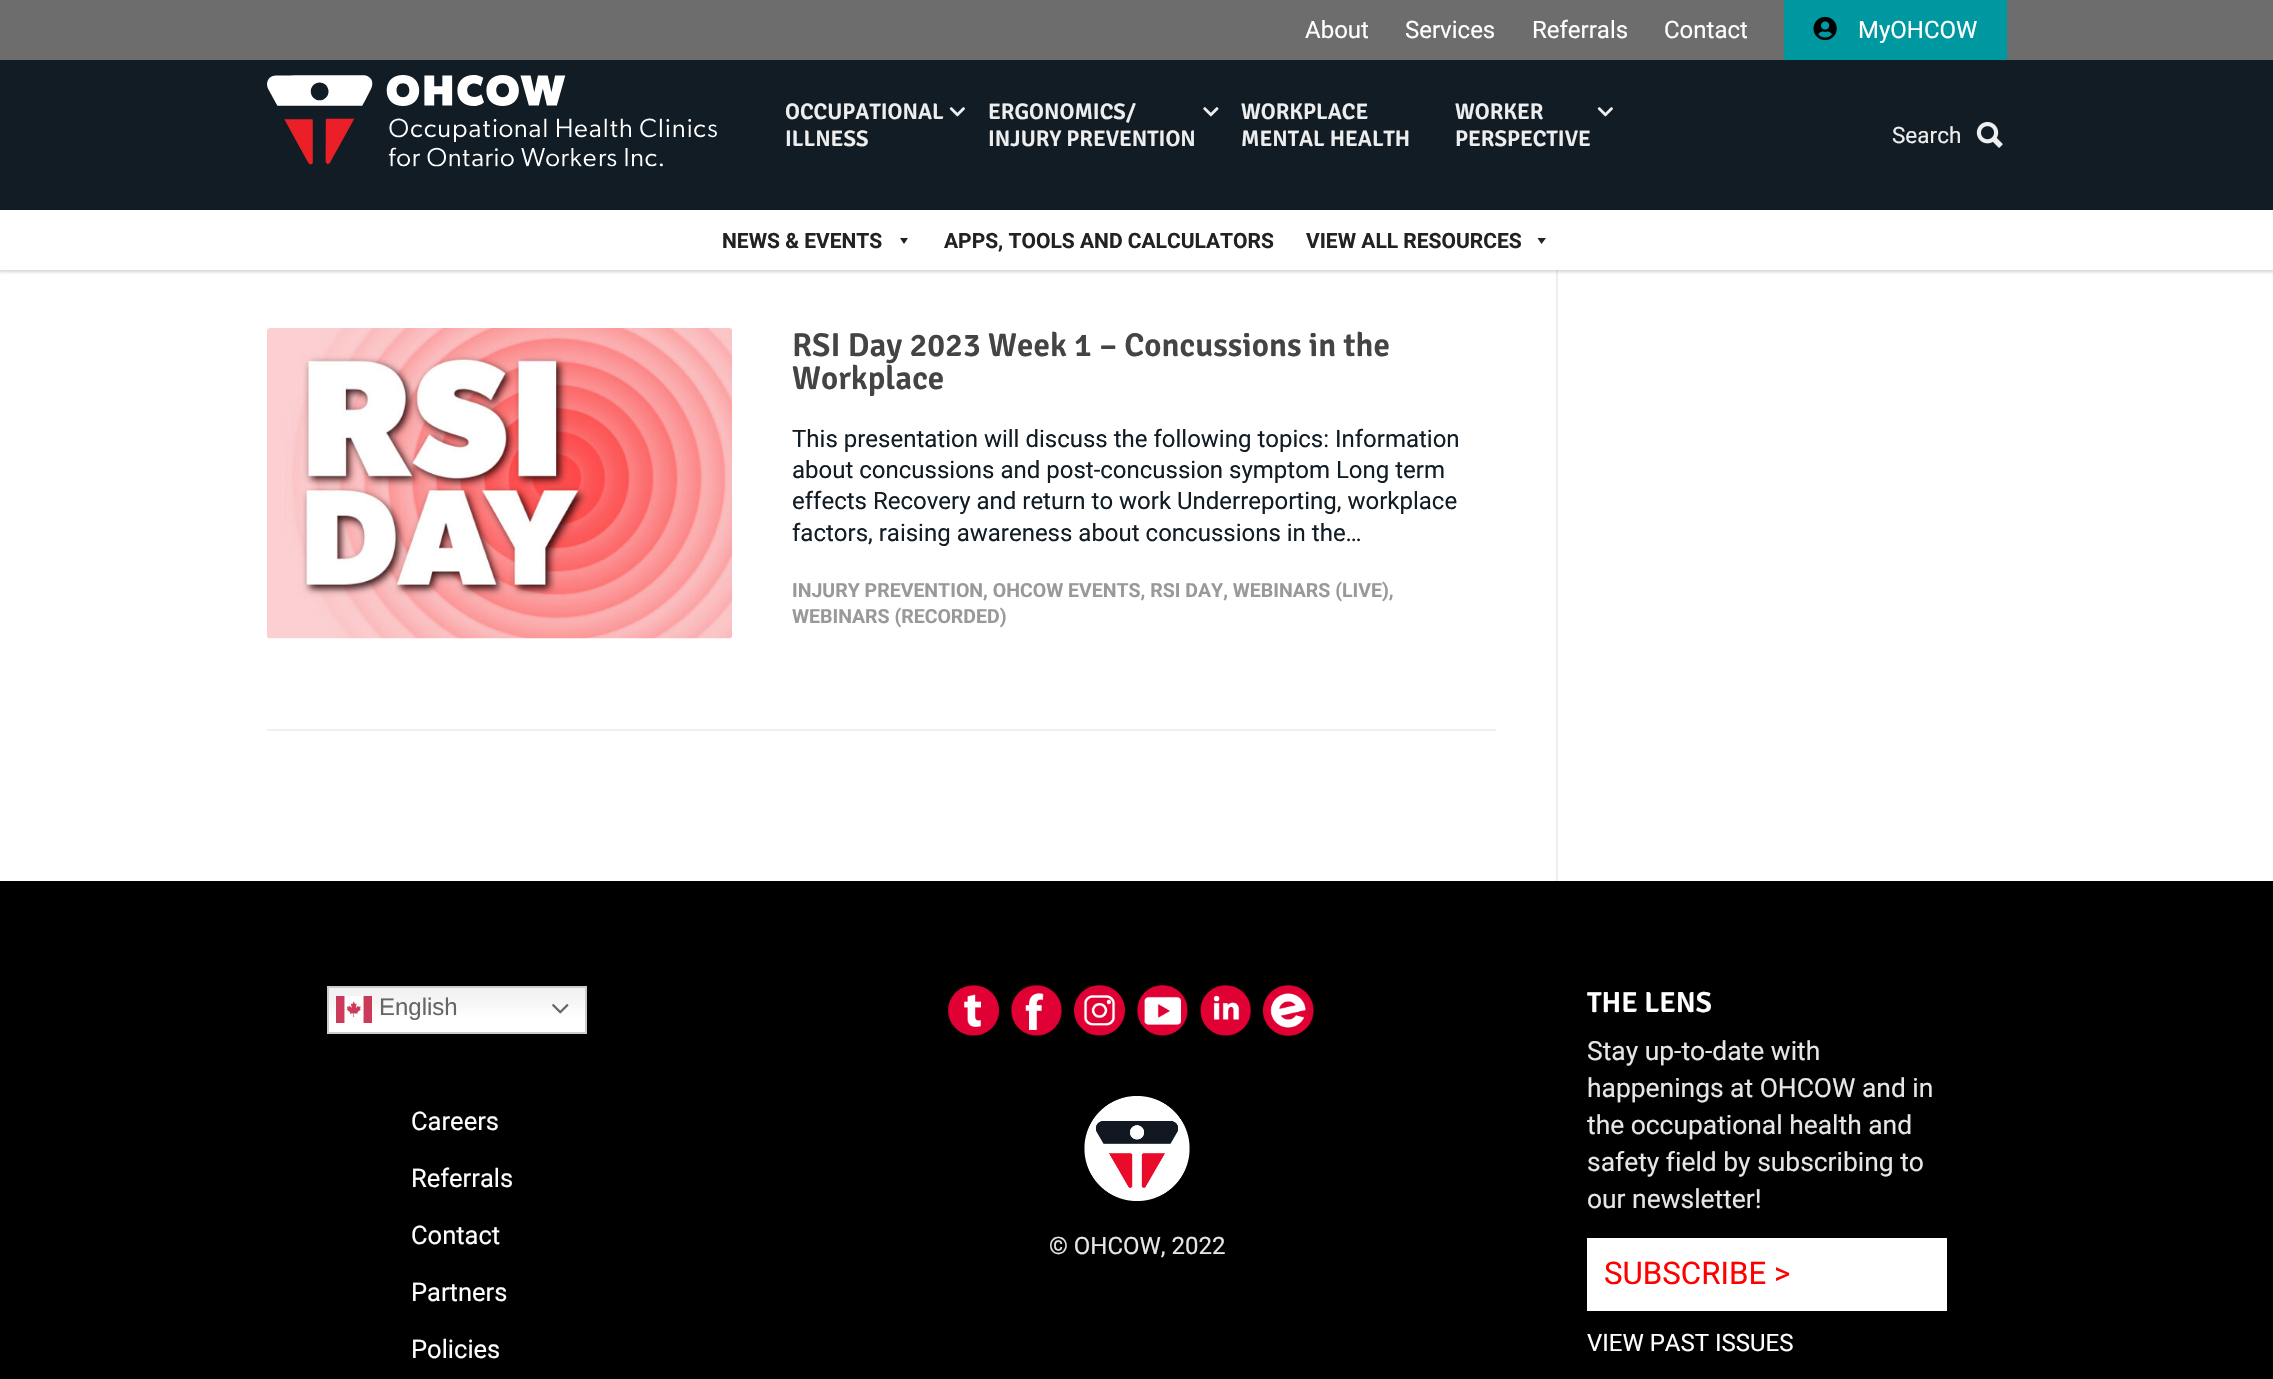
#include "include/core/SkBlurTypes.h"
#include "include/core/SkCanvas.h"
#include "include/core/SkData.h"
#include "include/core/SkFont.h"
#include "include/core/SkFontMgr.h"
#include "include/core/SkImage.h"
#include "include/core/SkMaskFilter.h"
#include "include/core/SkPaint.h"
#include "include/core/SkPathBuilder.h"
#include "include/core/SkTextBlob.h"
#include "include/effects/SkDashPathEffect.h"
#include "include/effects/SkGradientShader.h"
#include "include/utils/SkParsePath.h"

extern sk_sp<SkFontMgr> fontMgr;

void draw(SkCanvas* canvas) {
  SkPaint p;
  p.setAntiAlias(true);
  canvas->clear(SK_ColorWHITE);
  p.setColor(SkColorSetRGB(239, 239, 239));
  canvas->drawRect(SkRect::MakeLTRB(1556, 270, 1558, 881), p);
  p.setColor(SkColorSetARGB(41, 0, 0, 0));
  p.setMaskFilter(SkMaskFilter::MakeBlur(kNormal_SkBlurStyle, 1.5f));
  canvas->drawRect(SkRect::MakeLTRB(-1, -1, 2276, 272), p);
  p.setMaskFilter(nullptr);
  p.setColor(SkColorSetRGB(17, 28, 36));
  canvas->drawRect(SkRect::MakeLTRB(0, 60, 2273, 210), p);
  p.setColor(SkColorSetRGB(109, 109, 109));
  canvas->drawRect(SkRect::MakeLTRB(0, 0, 2273, 60), p);
  p.setColor(SkColorSetRGB(0, 152, 160));
  canvas->drawRect(SkRect::MakeLTRB(1784, 0, 2007, 60), p);
  canvas->drawImageRect(SkImages::DeferredFromEncodedData(SkData::MakeFromFileName("images/1.png")), SkRect::MakeLTRB(1813, 16, 1837, 41), SkSamplingOptions());
  canvas->drawImageRect(SkImages::DeferredFromEncodedData(SkData::MakeFromFileName("images/2.png")), SkRect::MakeLTRB(267, 75, 717, 167), SkSamplingOptions());
  canvas->drawImageRect(SkImages::DeferredFromEncodedData(SkData::MakeFromFileName("images/3.png")), SkRect::MakeLTRB(949, 107, 965, 117), SkSamplingOptions());
  canvas->drawImageRect(SkImages::DeferredFromEncodedData(SkData::MakeFromFileName("images/4.png")), SkRect::MakeLTRB(1203, 107, 1219, 117), SkSamplingOptions());
  canvas->drawImageRect(SkImages::DeferredFromEncodedData(SkData::MakeFromFileName("images/3.png")), SkRect::MakeLTRB(1597, 107, 1613, 117), SkSamplingOptions());
  canvas->drawImageRect(SkImages::DeferredFromEncodedData(SkData::MakeFromFileName("images/5.png")), SkRect::MakeLTRB(1976, 121, 2003, 148), SkSamplingOptions());
  p.setColor(SK_ColorWHITE);
  canvas->drawRect(SkRect::MakeLTRB(0, 210, 2273, 270), p);
  p.setColor(SkColorSetRGB(34, 34, 34));
  canvas->drawPath(SkPathBuilder().moveTo(908, 238).lineTo(904, 244).lineTo(900, 238).close().detach(), p);
  canvas->drawPath(SkPathBuilder().moveTo(1546, 238).lineTo(1541.5f, 244).lineTo(1537.5f, 238).close().detach(), p);
  p.setColor(SkColorSetRGB(239, 239, 239));
  canvas->drawRect(SkRect::MakeLTRB(267, 729, 1496, 731), p);
  canvas->drawImageRect(SkImages::DeferredFromEncodedData(SkData::MakeFromFileName("images/6.png")), SkRect::MakeLTRB(267, 328, 732, 639), SkSamplingOptions());
  p.setColor(SK_ColorBLACK);
  canvas->drawRect(SkRect::MakeLTRB(0, 881, 2273, 1379), p);
  {
    const SkColor colors[] = {SkColorSetRGB(239, 239, 239), SK_ColorWHITE};
    const float stops[] = {0, 0.7f};
    const SkPoint ends[] = {{457, 986}, {457, 1034}};
    p.setShader(SkGradientShader::MakeLinear(ends, colors, stops, 2, SkTileMode::kClamp));
    p.setAlpha(255);
  }
  canvas->drawRect(SkRect::MakeLTRB(329, 988, 585, 1032), p);
  p.setStyle(SkPaint::kStroke_Style);
  p.setStrokeWidth(2);
  p.setShader(nullptr);
  p.setColor(SkColorSetRGB(204, 204, 204));
  canvas->drawRect(SkRect::MakeLTRB(328, 987, 586, 1033), p);
  canvas->drawImageRect(SkImages::DeferredFromEncodedData(SkData::MakeFromFileName("images/7.png")), SkRect::MakeLTRB(336, 996, 372, 1023), SkSamplingOptions());
  canvas->drawImageRect(SkImages::DeferredFromEncodedData(SkData::MakeFromFileName("images/8.png")), SkRect::MakeLTRB(552, 1004, 569, 1014), SkSamplingOptions());
  canvas->drawImageRect(SkImages::DeferredFromEncodedData(SkData::MakeFromFileName("images/9.png")), SkRect::MakeLTRB(948, 985, 999, 1036), SkSamplingOptions());
  canvas->drawImageRect(SkImages::DeferredFromEncodedData(SkData::MakeFromFileName("images/10.png")), SkRect::MakeLTRB(1011, 985, 1062, 1036), SkSamplingOptions());
  canvas->drawImageRect(SkImages::DeferredFromEncodedData(SkData::MakeFromFileName("images/11.png")), SkRect::MakeLTRB(1074, 985, 1125, 1036), SkSamplingOptions());
  canvas->drawImageRect(SkImages::DeferredFromEncodedData(SkData::MakeFromFileName("images/12.png")), SkRect::MakeLTRB(1137, 985, 1188, 1036), SkSamplingOptions());
  canvas->drawImageRect(SkImages::DeferredFromEncodedData(SkData::MakeFromFileName("images/13.png")), SkRect::MakeLTRB(1200, 985, 1251, 1036), SkSamplingOptions());
  canvas->drawImageRect(SkImages::DeferredFromEncodedData(SkData::MakeFromFileName("images/14.png")), SkRect::MakeLTRB(1263, 985, 1314, 1036), SkSamplingOptions());
  canvas->drawImageRect(SkImages::DeferredFromEncodedData(SkData::MakeFromFileName("images/15.png")), SkRect::MakeLTRB(1084, 1096, 1190, 1201), SkSamplingOptions());
  p.setStyle(SkPaint::kFill_Style);
  p.setColor(SK_ColorWHITE);
  canvas->drawRect(SkRect::MakeLTRB(1587, 1238, 1947, 1311), p);
  SkFont font1(fontMgr->matchFamilyStyle("Roboto", SkFontStyle::Normal()), 24);
  font1.setSubpixel(true);
  canvas->drawString("About", 1305, 38, font1, p);
  canvas->drawString("Services", 1405, 38, font1, p);
  canvas->drawString("Referrals", 1532, 38, font1, p);
  canvas->drawString("Contact", 1664, 38, font1, p);
  canvas->drawString("MyOHCOW", 1858, 38, font1, p);
  SkFont font2(fontMgr->matchFamilyStyle("Signika", SkFontStyle(600, SkFontStyle::kNormal_Width, SkFontStyle::kUpright_Slant)), 22.5f);
  font2.setSubpixel(true);
  p.setColor(SkColorSetRGB(238, 238, 238));
  canvas->drawString("OCCUPATIONAL", 785, 119, font2, p);
  canvas->drawString("ILLNESS", 785, 146, font2, p);
  canvas->drawString("ERGONOMICS/", 988, 119, font2, p);
  canvas->drawString("INJURY PREVENTION", 988, 146, font2, p);
  canvas->drawString("WORKPLACE", 1241, 119, font2, p);
  canvas->drawString("MENTAL HEALTH", 1241, 146, font2, p);
  canvas->drawString("WORKER", 1455, 119, font2, p);
  canvas->drawString("PERSPECTIVE", 1455, 146, font2, p);
  SkFont font3(fontMgr->matchFamilyStyle("Roboto", SkFontStyle::Normal()), 22.5f);
  font3.setSubpixel(true);
  canvas->drawString("Search", 1892, 143, font3, p);
  SkFont font4(fontMgr->matchFamilyStyle("Roboto", SkFontStyle::Bold()), 21);
  font4.setSubpixel(true);
  p.setColor(SkColorSetRGB(34, 34, 34));
  canvas->drawString("NEWS & EVENTS", 722, 248, font4, p);
  canvas->drawString("APPS, TOOLS AND CALCULATORS", 944, 248, font4, p);
  canvas->drawString("VIEW ALL RESOURCES", 1306, 248, font4, p);
  SkFont font5(fontMgr->matchFamilyStyle("Signika", SkFontStyle(600, SkFontStyle::kNormal_Width, SkFontStyle::kUpright_Slant)), 33);
  font5.setSubpixel(true);
  p.setColor(SkColorSetRGB(68, 68, 68));
  canvas->drawString("RSI Day 2023 Week 1 – Concussions in the", 792, 356, font5, p);
  canvas->drawString("Workplace", 792, 389, font5, p);
  p.setColor(SkColorSetRGB(17, 28, 36));
  canvas->drawString("This presentation will discuss the following topics: Information", 792, 447, font1, p);
  canvas->drawString("about concussions and post-concussion symptom Long term", 792, 478, font1, p);
  canvas->drawString("effects Recovery and return to work Underreporting, workplace", 792, 509, font1, p);
  canvas->drawString("factors, raising awareness about concussions in the…", 792, 541, font1, p);
  SkFont font6(fontMgr->matchFamilyStyle("Roboto", SkFontStyle::Bold()), 19.5f);
  font6.setSubpixel(true);
  p.setColor(SkColorSetRGB(153, 153, 153));
  canvas->drawString("INJURY PREVENTION, OHCOW EVENTS, RSI DAY, WEBINARS (LIVE),", 792, 597, font6, p);
  canvas->drawString("WEBINARS (RECORDED)", 792, 623, font6, p);
  SkFont font7(fontMgr->matchFamilyStyle("Liberation Sans", SkFontStyle::Normal()), 24);
  font7.setSubpixel(true);
  p.setColor(SkColorSetRGB(102, 102, 102));
  canvas->drawString("English", 379, 1015, font7, p);
  SkFont font8(fontMgr->matchFamilyStyle("Roboto", SkFontStyle::Normal()), 25.5f);
  font8.setSubpixel(true);
  p.setColor(SK_ColorWHITE);
  canvas->drawString("Careers", 411, 1130, font8, p);
  canvas->drawString("Referrals", 411, 1187, font8, p);
  canvas->drawString("Contact", 411, 1244, font8, p);
  canvas->drawString("Partners", 411, 1301, font8, p);
  canvas->drawString("Policies", 411, 1358, font8, p);
  p.setColor(SkColorSetRGB(230, 230, 230));
  canvas->drawString("© OHCOW, 2022", 1049, 1254, font1, p);
  SkFont font9(fontMgr->matchFamilyStyle("Signika", SkFontStyle(600, SkFontStyle::kNormal_Width, SkFontStyle::kUpright_Slant)), 29);
  font9.setSubpixel(true);
  p.setColor(SK_ColorWHITE);
  canvas->drawString("THE LENS", 1587, 1012, font9, p);
  SkFont font10(fontMgr->matchFamilyStyle("Roboto", SkFontStyle::Normal()), 26.4f);
  font10.setSubpixel(true);
  p.setColor(SkColorSetRGB(230, 230, 230));
  canvas->drawString("Stay up-to-date with", 1587, 1060, font10, p);
  canvas->drawString("happenings at OHCOW and in", 1587, 1097, font10, p);
  canvas->drawString("the occupational health and", 1587, 1134, font10, p);
  canvas->drawString("safety field by subscribing to", 1587, 1171, font10, p);
  canvas->drawString("our newsletter!", 1587, 1208, font10, p);
  SkFont font11(fontMgr->matchFamilyStyle("Roboto", SkFontStyle::Normal()), 31.25f);
  font11.setSubpixel(true);
  p.setColor(SkColorSetRGB(255, 0, 0));
  canvas->drawString("SUBSCRIBE >", 1604, 1284, font11, p);
  p.setColor(SK_ColorWHITE);
  canvas->drawString("VIEW PAST ISSUES", 1587, 1351, font1, p);
}
